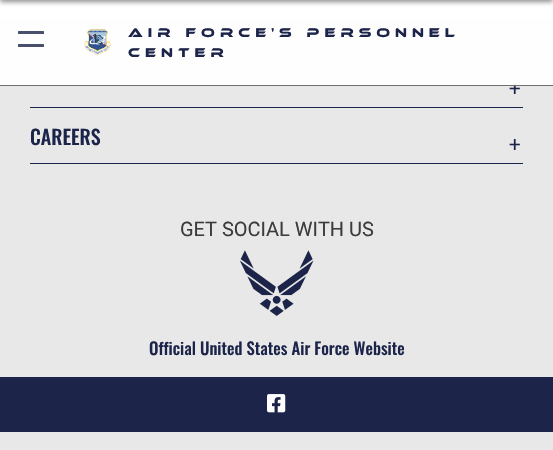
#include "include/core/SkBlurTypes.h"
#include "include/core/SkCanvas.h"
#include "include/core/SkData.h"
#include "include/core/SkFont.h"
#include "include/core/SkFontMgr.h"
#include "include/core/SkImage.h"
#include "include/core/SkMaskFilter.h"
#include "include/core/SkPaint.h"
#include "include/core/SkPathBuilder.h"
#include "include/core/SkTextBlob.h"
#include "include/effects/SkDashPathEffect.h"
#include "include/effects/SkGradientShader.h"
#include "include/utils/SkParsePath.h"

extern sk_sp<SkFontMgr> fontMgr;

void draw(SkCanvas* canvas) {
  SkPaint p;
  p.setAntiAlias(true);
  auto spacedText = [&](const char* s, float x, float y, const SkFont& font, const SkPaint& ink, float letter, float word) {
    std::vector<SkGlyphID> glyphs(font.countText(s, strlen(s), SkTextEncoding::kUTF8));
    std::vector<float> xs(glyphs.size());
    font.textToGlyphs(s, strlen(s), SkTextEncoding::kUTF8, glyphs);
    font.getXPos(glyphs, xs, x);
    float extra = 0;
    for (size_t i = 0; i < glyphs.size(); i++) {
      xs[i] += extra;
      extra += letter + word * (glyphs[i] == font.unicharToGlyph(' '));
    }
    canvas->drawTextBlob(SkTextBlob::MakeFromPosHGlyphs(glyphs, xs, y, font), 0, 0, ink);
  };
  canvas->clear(SK_ColorWHITE);
  p.setColor(SkColorSetARGB(128, 25, 25, 25));
  p.setMaskFilter(SkMaskFilter::MakeBlur(kNormal_SkBlurStyle, 2.5f));
  canvas->drawRect(SkRect::MakeLTRB(0, -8, 553, 2), p);
  p.setMaskFilter(nullptr);
  p.setColor(SkColorSetRGB(232, 232, 232));
  canvas->drawRect(SkRect::MakeLTRB(0, 19, 553, 450), p);
  p.setColor(SkColorSetRGB(28, 36, 73));
  canvas->drawRect(SkRect::MakeLTRB(30, 107, 523, 108), p);
  canvas->drawRect(SkRect::MakeLTRB(30, 163, 523, 164), p);
  canvas->drawImageRect(SkImages::DeferredFromEncodedData(SkData::MakeFromFileName("images/2.png")), SkRect::MakeLTRB(239, 250, 314, 316), SkSamplingOptions());
  canvas->drawRect(SkRect::MakeLTRB(0, 377, 553, 432), p);
  canvas->drawImageRect(SkImages::DeferredFromEncodedData(SkData::MakeFromFileName("images/3.png")), SkRect::MakeLTRB(267, 394, 286, 413), SkSamplingOptions());
  SkFont font1(fontMgr->matchFamilyStyle("Oswald", SkFontStyle(300, SkFontStyle::kNormal_Width, SkFontStyle::kUpright_Slant)), 30);
  font1.setSubpixel(true);
  canvas->drawString("+", 509, 101, font1, p);
  p.setColor(SkColorSetARGB(242, 255, 255, 255));
  canvas->drawRect(SkRect::MakeLTRB(0, 19, 553, 85), p);
  p.setColor(SkColorSetRGB(73, 80, 109));
  canvas->drawRoundRect(SkRect::MakeLTRB(18, 31, 44, 34), 0.5f, 0.5f, p);
  canvas->drawRoundRect(SkRect::MakeLTRB(18, 44, 44, 47), 0.5f, 0.5f, p);
  SkFont font2(fontMgr->matchFamilyStyle("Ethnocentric", SkFontStyle::Normal()), 13);
  font2.setSubpixel(true);
  p.setColor(SkColorSetRGB(28, 36, 73));
  spacedText("Center", 128, 57, font2, p, 5, 0);
  spacedText("Air Force's Personnel", 128, 37, font2, p, 5, 0);
  canvas->drawImageRect(SkImages::DeferredFromEncodedData(SkData::MakeFromFileName("images/1.png")), SkRect::MakeLTRB(84, 29, 111, 56), SkSamplingOptions());
  p.setColor(SkColorSetRGB(112, 112, 112));
  canvas->drawRect(SkRect::MakeLTRB(0, 85, 553, 86), p);
  SkFont font3(fontMgr->matchFamilyStyle("Oswald", SkFontStyle(500, SkFontStyle::kNormal_Width, SkFontStyle::kUpright_Slant)), 20);
  font3.setSubpixel(true);
  p.setColor(SkColorSetRGB(28, 36, 73));
  canvas->drawString("CAREERS", 30, 145, font3, p);
  canvas->drawString("+", 509, 157, font1, p);
  SkFont font4(fontMgr->matchFamilyStyle("Roboto", SkFontStyle::Normal()), 20);
  font4.setSubpixel(true);
  p.setColor(SkColorSetRGB(61, 60, 60));
  canvas->drawString("GET SOCIAL WITH US", 180, 236, font4, p);
  SkFont font5(fontMgr->matchFamilyStyle("Oswald", SkFontStyle(500, SkFontStyle::kNormal_Width, SkFontStyle::kUpright_Slant)), 16.7f);
  font5.setSubpixel(true);
  p.setColor(SkColorSetRGB(28, 36, 73));
  canvas->drawString("Official United States Air Force Website", 149, 355, font5, p);
}
